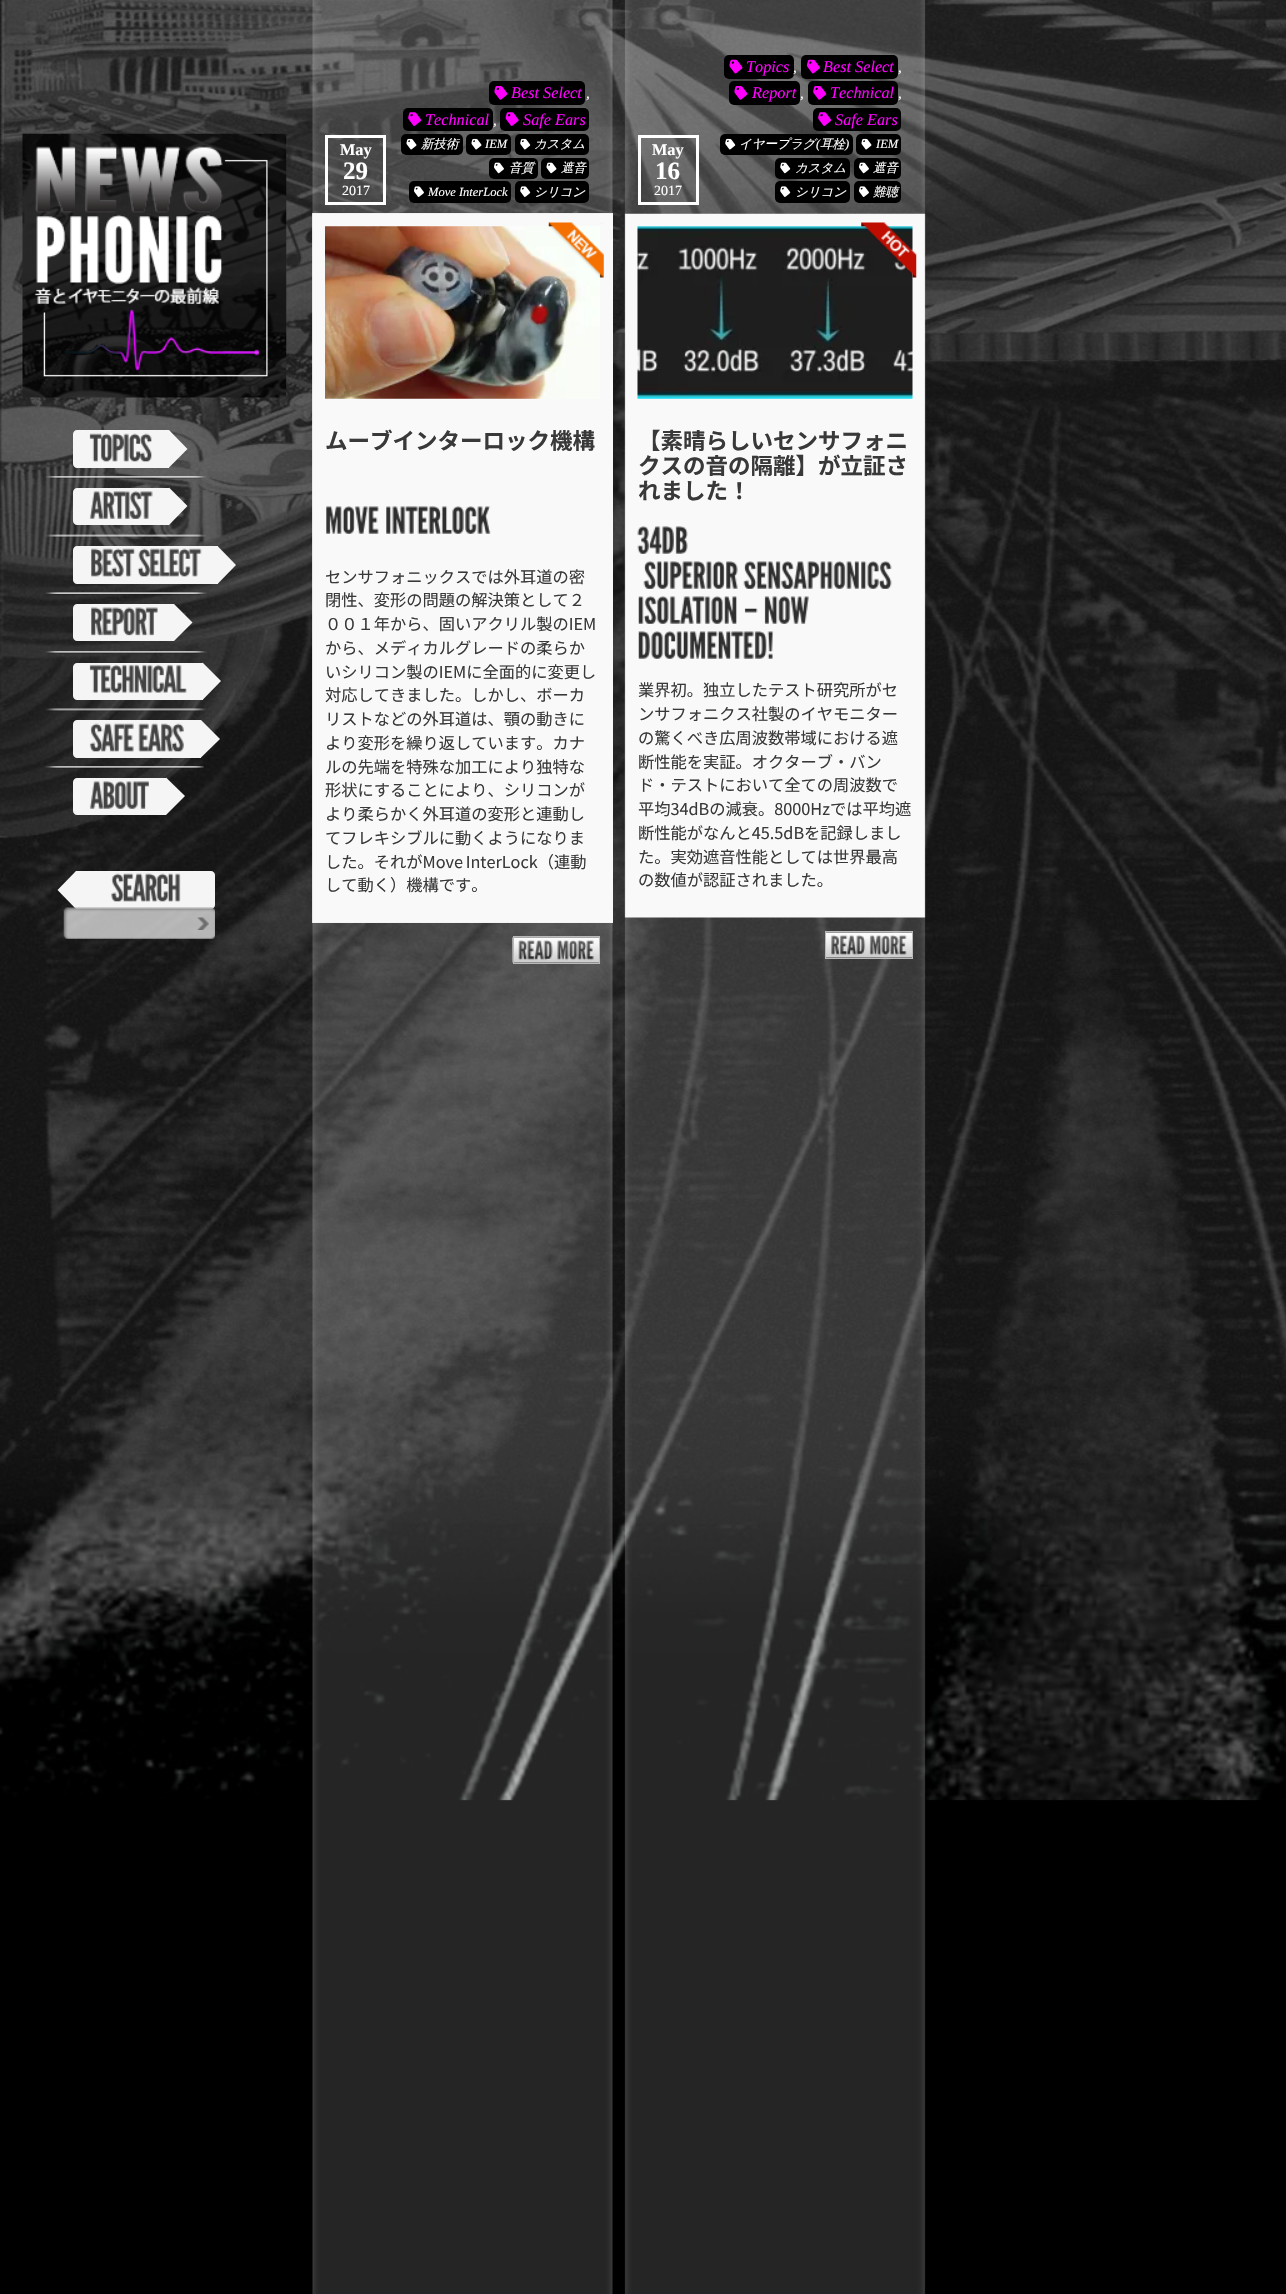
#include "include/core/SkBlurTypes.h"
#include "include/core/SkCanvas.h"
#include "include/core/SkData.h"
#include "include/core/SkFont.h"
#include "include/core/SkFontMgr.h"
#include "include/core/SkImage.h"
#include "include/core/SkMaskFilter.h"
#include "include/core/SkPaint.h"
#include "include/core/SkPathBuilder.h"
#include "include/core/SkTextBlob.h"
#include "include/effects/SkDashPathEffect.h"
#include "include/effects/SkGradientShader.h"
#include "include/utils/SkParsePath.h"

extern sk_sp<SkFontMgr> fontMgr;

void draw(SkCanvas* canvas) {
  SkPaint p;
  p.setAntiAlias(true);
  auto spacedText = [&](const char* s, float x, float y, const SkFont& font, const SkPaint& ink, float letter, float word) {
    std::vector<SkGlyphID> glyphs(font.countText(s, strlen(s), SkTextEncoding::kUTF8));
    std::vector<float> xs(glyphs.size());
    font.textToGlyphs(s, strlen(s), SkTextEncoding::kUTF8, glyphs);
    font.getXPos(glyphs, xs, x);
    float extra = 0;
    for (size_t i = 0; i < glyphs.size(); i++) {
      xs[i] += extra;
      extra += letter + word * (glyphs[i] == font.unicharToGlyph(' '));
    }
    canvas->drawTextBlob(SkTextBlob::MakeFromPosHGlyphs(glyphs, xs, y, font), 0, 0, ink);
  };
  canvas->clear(SK_ColorBLACK);
  canvas->drawImageRect(SkImages::DeferredFromEncodedData(SkData::MakeFromFileName("images/1.png")), SkRect::MakeLTRB(300, 0, 1286, 1801), SkSamplingOptions());
  canvas->drawImageRect(SkImages::DeferredFromEncodedData(SkData::MakeFromFileName("images/2.png")), SkRect::MakeLTRB(0, 0, 300, 1799), SkSamplingOptions());
  canvas->drawImageRect(SkImages::DeferredFromEncodedData(SkData::MakeFromFileName("images/3.png")), SkRect::MakeLTRB(22, 133, 287, 398), SkSamplingOptions());
  p.setColor(SkColorSetRGB(245, 245, 245));
  canvas->drawPath(SkPathBuilder().moveTo(77, 430).lineTo(169, 430).lineTo(169, 468).lineTo(77, 468).cubicTo(75, 468, 73, 466, 73, 464).lineTo(73, 434).cubicTo(73, 432, 75, 430, 77, 430).close().detach(), p);
  canvas->drawImageRect(SkImages::DeferredFromEncodedData(SkData::MakeFromFileName("images/4.png")), SkRect::MakeLTRB(89, 433, 152, 462), SkSamplingOptions());
  canvas->drawPath(SkPathBuilder().moveTo(169, 467.5f).lineTo(169, 430).lineTo(187.5f, 449).close().detach(), p);
  canvas->drawImageRect(SkImages::DeferredFromEncodedData(SkData::MakeFromFileName("images/5.png")), SkRect::MakeLTRB(45, 476, 206, 479), SkSamplingOptions());
  canvas->drawPath(SkPathBuilder().moveTo(77, 488).lineTo(169, 488).lineTo(169, 525).lineTo(77, 525).cubicTo(75, 525, 73, 523, 73, 521).lineTo(73, 492).cubicTo(73, 490, 75, 488, 77, 488).close().detach(), p);
  canvas->drawImageRect(SkImages::DeferredFromEncodedData(SkData::MakeFromFileName("images/6.png")), SkRect::MakeLTRB(89, 491, 153, 519), SkSamplingOptions());
  canvas->drawPath(SkPathBuilder().moveTo(169, 525).lineTo(169, 487.5f).lineTo(187.5f, 506).close().detach(), p);
  canvas->drawImageRect(SkImages::DeferredFromEncodedData(SkData::MakeFromFileName("images/7.png")), SkRect::MakeLTRB(45, 534, 207, 538), SkSamplingOptions());
  canvas->drawPath(SkPathBuilder().moveTo(77, 546).lineTo(218, 546).lineTo(218, 584).lineTo(77, 584).cubicTo(75, 584, 73, 582, 73, 580).lineTo(73, 550).cubicTo(73, 548, 75, 546, 77, 546).close().detach(), p);
  canvas->drawImageRect(SkImages::DeferredFromEncodedData(SkData::MakeFromFileName("images/8.png")), SkRect::MakeLTRB(91, 548, 136, 577), SkSamplingOptions());
  canvas->drawImageRect(SkImages::DeferredFromEncodedData(SkData::MakeFromFileName("images/9.png")), SkRect::MakeLTRB(137, 548, 202, 577), SkSamplingOptions());
  canvas->drawPath(SkPathBuilder().moveTo(217.5f, 584).lineTo(217.5f, 546).lineTo(236, 565).close().detach(), p);
  canvas->drawImageRect(SkImages::DeferredFromEncodedData(SkData::MakeFromFileName("images/10.png")), SkRect::MakeLTRB(45, 592, 207, 595), SkSamplingOptions());
  canvas->drawPath(SkPathBuilder().moveTo(77, 604).lineTo(174, 604).lineTo(174, 641).lineTo(77, 641).cubicTo(75, 641, 73, 639, 73, 637).lineTo(73, 608).cubicTo(73, 606, 75, 604, 77, 604).close().detach(), p);
  canvas->drawImageRect(SkImages::DeferredFromEncodedData(SkData::MakeFromFileName("images/11.png")), SkRect::MakeLTRB(91, 607, 158, 636), SkSamplingOptions());
  canvas->drawPath(SkPathBuilder().moveTo(174, 641).lineTo(174, 604).lineTo(192.5f, 622.5f).close().detach(), p);
  canvas->drawImageRect(SkImages::DeferredFromEncodedData(SkData::MakeFromFileName("images/12.png")), SkRect::MakeLTRB(45, 651, 207, 654), SkSamplingOptions());
  canvas->drawPath(SkPathBuilder().moveTo(77, 663).lineTo(203, 663).lineTo(203, 700).lineTo(77, 700).cubicTo(75, 700, 73, 698, 73, 696).lineTo(73, 667).cubicTo(73, 665, 75, 663, 77, 663).close().detach(), p);
  canvas->drawImageRect(SkImages::DeferredFromEncodedData(SkData::MakeFromFileName("images/13.png")), SkRect::MakeLTRB(89, 664, 187, 693), SkSamplingOptions());
  canvas->drawPath(SkPathBuilder().moveTo(202.5f, 700).lineTo(202.5f, 662.5f).lineTo(221, 681).close().detach(), p);
  canvas->drawImageRect(SkImages::DeferredFromEncodedData(SkData::MakeFromFileName("images/14.png")), SkRect::MakeLTRB(45, 708, 207, 712), SkSamplingOptions());
  canvas->drawPath(SkPathBuilder().moveTo(77, 720).lineTo(201, 720).lineTo(201, 758).lineTo(77, 758).cubicTo(75, 758, 73, 756, 73, 754).lineTo(73, 724).cubicTo(73, 722, 75, 720, 77, 720).close().detach(), p);
  canvas->drawImageRect(SkImages::DeferredFromEncodedData(SkData::MakeFromFileName("images/15.png")), SkRect::MakeLTRB(89, 723, 134, 752), SkSamplingOptions());
  canvas->drawImageRect(SkImages::DeferredFromEncodedData(SkData::MakeFromFileName("images/16.png")), SkRect::MakeLTRB(138, 723, 184, 752), SkSamplingOptions());
  canvas->drawPath(SkPathBuilder().moveTo(201, 757.5f).lineTo(201, 720).lineTo(220, 739).close().detach(), p);
  canvas->drawImageRect(SkImages::DeferredFromEncodedData(SkData::MakeFromFileName("images/17.png")), SkRect::MakeLTRB(45, 766, 204, 769), SkSamplingOptions());
  canvas->drawPath(SkPathBuilder().moveTo(77, 778).lineTo(166, 778).lineTo(166, 815).lineTo(77, 815).cubicTo(75, 815, 73, 813, 73, 811).lineTo(73, 782).cubicTo(73, 780, 75, 778, 77, 778).close().detach(), p);
  canvas->drawImageRect(SkImages::DeferredFromEncodedData(SkData::MakeFromFileName("images/18.png")), SkRect::MakeLTRB(89, 781, 149, 809), SkSamplingOptions());
  canvas->drawPath(SkPathBuilder().moveTo(166, 815).lineTo(166, 777.5f).lineTo(185, 796).close().detach(), p);
  canvas->drawPath(SkPathBuilder().moveTo(76, 871).lineTo(211, 871).cubicTo(213, 871, 215, 873, 215, 875).lineTo(215, 905).cubicTo(215, 907, 213, 909, 211, 909).lineTo(76, 909).close().detach(), p);
  canvas->drawPath(SkPathBuilder().moveTo(76, 871).lineTo(76, 909).lineTo(57.5f, 890).close().detach(), p);
  canvas->drawImageRect(SkImages::DeferredFromEncodedData(SkData::MakeFromFileName("images/19.png")), SkRect::MakeLTRB(111, 873, 181, 902), SkSamplingOptions());
  canvas->drawImageRect(SkImages::DeferredFromEncodedData(SkData::MakeFromFileName("images/20.png")), SkRect::MakeLTRB(63, 907, 215, 939), SkSamplingOptions());
  canvas->drawImageRect(SkImages::DeferredFromEncodedData(SkData::MakeFromFileName("images/21.png")), SkRect::MakeLTRB(197, 917, 209, 930), SkSamplingOptions());
  canvas->drawImageRect(SkImages::DeferredFromEncodedData(SkData::MakeFromFileName("images/23.png")), SkRect::MakeLTRB(301, 69, 302, 361), SkSamplingOptions());
  canvas->drawImageRect(SkImages::DeferredFromEncodedData(SkData::MakeFromFileName("images/22.png")), SkRect::MakeLTRB(301, 67, 303, 389), SkSamplingOptions());
  canvas->drawImageRect(SkImages::DeferredFromEncodedData(SkData::MakeFromFileName("images/25.png")), SkRect::MakeLTRB(312, 0, 613, 2294), SkSamplingOptions());
  p.setColor(SkColorSetRGB(249, 249, 249));
  canvas->drawRect(SkRect::MakeLTRB(312, 213, 613, 922), p);
  p.setColor(SkColorSetARGB(8, 0, 0, 0));
  canvas->drawRect(SkRect::MakeLTRB(312, 212, 613, 214), p);
  p.setColor(SkColorSetRGB(244, 244, 244));
  canvas->drawRect(SkRect::MakeLTRB(312, 922, 613, 923), p);
  canvas->drawImageRect(SkImages::DeferredFromEncodedData(SkData::MakeFromFileName("images/24.png")), SkRect::MakeLTRB(312, 213, 313, 923), SkSamplingOptions());
  p.setStyle(SkPaint::kStroke_Style);
  p.setStrokeWidth(3);
  p.setColor(SK_ColorWHITE);
  canvas->drawRect(SkRect::MakeLTRB(326.5f, 136.5f, 384.5f, 203.5f), p);
  p.setStyle(SkPaint::kFill_Style);
  p.setColor(SK_ColorBLACK);
  canvas->drawRoundRect(SkRect::MakeLTRB(489, 81, 585, 105), 5, 5, p);
  canvas->drawImageRect(SkImages::DeferredFromEncodedData(SkData::MakeFromFileName("images/26.png")), SkRect::MakeLTRB(494, 86, 508, 100), SkSamplingOptions());
  canvas->drawRoundRect(SkRect::MakeLTRB(403, 108, 493, 131), 5, 5, p);
  canvas->drawImageRect(SkImages::DeferredFromEncodedData(SkData::MakeFromFileName("images/27.png")), SkRect::MakeLTRB(408, 112, 422, 126), SkSamplingOptions());
  canvas->drawRoundRect(SkRect::MakeLTRB(500, 108, 589, 131), 5, 5, p);
  canvas->drawImageRect(SkImages::DeferredFromEncodedData(SkData::MakeFromFileName("images/28.png")), SkRect::MakeLTRB(505, 112, 519, 126), SkSamplingOptions());
  canvas->drawRoundRect(SkRect::MakeLTRB(401, 134, 463, 155), 5, 5, p);
  canvas->drawImageRect(SkImages::DeferredFromEncodedData(SkData::MakeFromFileName("images/29.png")), SkRect::MakeLTRB(406, 138, 417, 150), SkSamplingOptions());
  canvas->drawRoundRect(SkRect::MakeLTRB(466, 134, 511, 155), 5, 5, p);
  canvas->drawImageRect(SkImages::DeferredFromEncodedData(SkData::MakeFromFileName("images/29.png")), SkRect::MakeLTRB(471, 138, 482, 150), SkSamplingOptions());
  canvas->drawRoundRect(SkRect::MakeLTRB(515, 134, 589, 155), 5, 5, p);
  canvas->drawImageRect(SkImages::DeferredFromEncodedData(SkData::MakeFromFileName("images/30.png")), SkRect::MakeLTRB(520, 138, 531, 150), SkSamplingOptions());
  canvas->drawRoundRect(SkRect::MakeLTRB(489, 158, 538, 179), 5, 5, p);
  canvas->drawImageRect(SkImages::DeferredFromEncodedData(SkData::MakeFromFileName("images/31.png")), SkRect::MakeLTRB(494, 162, 504, 174), SkSamplingOptions());
  canvas->drawRoundRect(SkRect::MakeLTRB(541, 158, 589, 179), 5, 5, p);
  canvas->drawImageRect(SkImages::DeferredFromEncodedData(SkData::MakeFromFileName("images/32.png")), SkRect::MakeLTRB(546, 162, 557, 174), SkSamplingOptions());
  canvas->drawRoundRect(SkRect::MakeLTRB(409, 181, 511, 203), 5, 5, p);
  canvas->drawImageRect(SkImages::DeferredFromEncodedData(SkData::MakeFromFileName("images/33.png")), SkRect::MakeLTRB(414, 186, 424, 197), SkSamplingOptions());
  canvas->drawRoundRect(SkRect::MakeLTRB(515, 181, 589, 203), 5, 5, p);
  canvas->drawImageRect(SkImages::DeferredFromEncodedData(SkData::MakeFromFileName("images/34.png")), SkRect::MakeLTRB(520, 186, 531, 197), SkSamplingOptions());
  canvas->drawImageRect(SkImages::DeferredFromEncodedData(SkData::MakeFromFileName("images/36.png")), SkRect::MakeLTRB(325, 226, 600, 399), SkSamplingOptions());
  canvas->drawImageRect(SkImages::DeferredFromEncodedData(SkData::MakeFromFileName("images/35.png")), SkRect::MakeLTRB(548, 222, 604, 278), SkSamplingOptions());
  canvas->drawImageRect(SkImages::DeferredFromEncodedData(SkData::MakeFromFileName("images/37.png")), SkRect::MakeLTRB(326, 506, 379, 534), SkSamplingOptions());
  canvas->drawImageRect(SkImages::DeferredFromEncodedData(SkData::MakeFromFileName("images/38.png")), SkRect::MakeLTRB(386, 506, 491, 534), SkSamplingOptions());
  canvas->drawImageRect(SkImages::DeferredFromEncodedData(SkData::MakeFromFileName("images/39.png")), SkRect::MakeLTRB(512, 937, 599, 963), SkSamplingOptions());
  p.setStyle(SkPaint::kStroke_Style);
  p.setStrokeWidth(1);
  p.setColor(SkColorSetRGB(185, 185, 185));
  canvas->drawRect(SkRect::MakeLTRB(513.5f, 936.5f, 599.5f, 963.5f), p);
  canvas->drawImageRect(SkImages::DeferredFromEncodedData(SkData::MakeFromFileName("images/40.png")), SkRect::MakeLTRB(518, 940, 553, 961), SkSamplingOptions());
  canvas->drawImageRect(SkImages::DeferredFromEncodedData(SkData::MakeFromFileName("images/41.png")), SkRect::MakeLTRB(557, 940, 594, 961), SkSamplingOptions());
  canvas->drawImageRect(SkImages::DeferredFromEncodedData(SkData::MakeFromFileName("images/42.png")), SkRect::MakeLTRB(624, 0, 926, 2294), SkSamplingOptions());
  canvas->drawImageRect(SkImages::DeferredFromEncodedData(SkData::MakeFromFileName("images/43.png")), SkRect::MakeLTRB(624, 213, 926, 918), SkSamplingOptions());
  p.setStrokeWidth(3);
  p.setColor(SK_ColorWHITE);
  canvas->drawRect(SkRect::MakeLTRB(639.5f, 136.5f, 697.5f, 203.5f), p);
  p.setStyle(SkPaint::kFill_Style);
  p.setColor(SK_ColorBLACK);
  canvas->drawRoundRect(SkRect::MakeLTRB(724, 55, 794, 79), 5, 5, p);
  canvas->drawImageRect(SkImages::DeferredFromEncodedData(SkData::MakeFromFileName("images/44.png")), SkRect::MakeLTRB(729, 59, 743, 74), SkSamplingOptions());
  canvas->drawRoundRect(SkRect::MakeLTRB(801, 55, 898, 79), 5, 5, p);
  canvas->drawImageRect(SkImages::DeferredFromEncodedData(SkData::MakeFromFileName("images/45.png")), SkRect::MakeLTRB(806, 59, 820, 74), SkSamplingOptions());
  canvas->drawRoundRect(SkRect::MakeLTRB(729, 81, 800, 105), 5, 5, p);
  canvas->drawImageRect(SkImages::DeferredFromEncodedData(SkData::MakeFromFileName("images/26.png")), SkRect::MakeLTRB(734, 86, 748, 100), SkSamplingOptions());
  canvas->drawRoundRect(SkRect::MakeLTRB(808, 81, 898, 105), 5, 5, p);
  canvas->drawImageRect(SkImages::DeferredFromEncodedData(SkData::MakeFromFileName("images/46.png")), SkRect::MakeLTRB(813, 86, 827, 100), SkSamplingOptions());
  canvas->drawRoundRect(SkRect::MakeLTRB(813, 108, 901, 131), 5, 5, p);
  canvas->drawImageRect(SkImages::DeferredFromEncodedData(SkData::MakeFromFileName("images/27.png")), SkRect::MakeLTRB(818, 112, 832, 126), SkSamplingOptions());
  canvas->drawRoundRect(SkRect::MakeLTRB(720, 134, 853, 155), 5, 5, p);
  canvas->drawImageRect(SkImages::DeferredFromEncodedData(SkData::MakeFromFileName("images/30.png")), SkRect::MakeLTRB(725, 138, 736, 150), SkSamplingOptions());
  canvas->drawRoundRect(SkRect::MakeLTRB(856, 134, 901, 155), 5, 5, p);
  canvas->drawImageRect(SkImages::DeferredFromEncodedData(SkData::MakeFromFileName("images/29.png")), SkRect::MakeLTRB(861, 138, 872, 150), SkSamplingOptions());
  canvas->drawRoundRect(SkRect::MakeLTRB(775, 158, 850, 179), 5, 5, p);
  canvas->drawImageRect(SkImages::DeferredFromEncodedData(SkData::MakeFromFileName("images/47.png")), SkRect::MakeLTRB(780, 162, 791, 174), SkSamplingOptions());
  canvas->drawRoundRect(SkRect::MakeLTRB(854, 158, 901, 179), 5, 5, p);
  canvas->drawImageRect(SkImages::DeferredFromEncodedData(SkData::MakeFromFileName("images/31.png")), SkRect::MakeLTRB(859, 162, 869, 174), SkSamplingOptions());
  canvas->drawRoundRect(SkRect::MakeLTRB(775, 181, 850, 203), 5, 5, p);
  canvas->drawImageRect(SkImages::DeferredFromEncodedData(SkData::MakeFromFileName("images/34.png")), SkRect::MakeLTRB(780, 186, 791, 197), SkSamplingOptions());
  canvas->drawRoundRect(SkRect::MakeLTRB(854, 181, 901, 203), 5, 5, p);
  canvas->drawImageRect(SkImages::DeferredFromEncodedData(SkData::MakeFromFileName("images/33.png")), SkRect::MakeLTRB(859, 186, 869, 197), SkSamplingOptions());
  canvas->drawImageRect(SkImages::DeferredFromEncodedData(SkData::MakeFromFileName("images/49.png")), SkRect::MakeLTRB(637, 226, 913, 399), SkSamplingOptions());
  canvas->drawImageRect(SkImages::DeferredFromEncodedData(SkData::MakeFromFileName("images/48.png")), SkRect::MakeLTRB(861, 222, 917, 278), SkSamplingOptions());
  canvas->drawImageRect(SkImages::DeferredFromEncodedData(SkData::MakeFromFileName("images/50.png")), SkRect::MakeLTRB(637, 526, 688, 554), SkSamplingOptions());
  canvas->drawImageRect(SkImages::DeferredFromEncodedData(SkData::MakeFromFileName("images/51.png")), SkRect::MakeLTRB(643, 561, 738, 589), SkSamplingOptions());
  canvas->drawImageRect(SkImages::DeferredFromEncodedData(SkData::MakeFromFileName("images/52.png")), SkRect::MakeLTRB(743, 561, 892, 589), SkSamplingOptions());
  canvas->drawImageRect(SkImages::DeferredFromEncodedData(SkData::MakeFromFileName("images/53.png")), SkRect::MakeLTRB(638, 596, 737, 624), SkSamplingOptions());
  canvas->drawImageRect(SkImages::DeferredFromEncodedData(SkData::MakeFromFileName("images/54.png")), SkRect::MakeLTRB(744, 608, 758, 613), SkSamplingOptions());
  canvas->drawImageRect(SkImages::DeferredFromEncodedData(SkData::MakeFromFileName("images/55.png")), SkRect::MakeLTRB(764, 596, 809, 624), SkSamplingOptions());
  canvas->drawImageRect(SkImages::DeferredFromEncodedData(SkData::MakeFromFileName("images/56.png")), SkRect::MakeLTRB(638, 631, 774, 659), SkSamplingOptions());
  canvas->drawImageRect(SkImages::DeferredFromEncodedData(SkData::MakeFromFileName("images/57.png")), SkRect::MakeLTRB(826, 932, 912, 958), SkSamplingOptions());
  p.setStyle(SkPaint::kStroke_Style);
  p.setStrokeWidth(1);
  p.setColor(SkColorSetRGB(185, 185, 185));
  canvas->drawRect(SkRect::MakeLTRB(825.5f, 931.5f, 912.5f, 958.5f), p);
  canvas->drawImageRect(SkImages::DeferredFromEncodedData(SkData::MakeFromFileName("images/58.png")), SkRect::MakeLTRB(831, 935, 866, 956), SkSamplingOptions());
  canvas->drawImageRect(SkImages::DeferredFromEncodedData(SkData::MakeFromFileName("images/59.png")), SkRect::MakeLTRB(869, 935, 907, 956), SkSamplingOptions());
  SkFont font1(fontMgr->matchFamilyStyle("Liberation Serif", SkFontStyle::Bold()), 16.25f);
  font1.setSubpixel(true);
  p.setStyle(SkPaint::kFill_Style);
  p.setColor(SK_ColorWHITE);
  canvas->drawString("May", 340, 155, font1, p);
  SkFont font2(fontMgr->matchFamilyStyle("Liberation Serif", SkFontStyle::Bold()), 25);
  font2.setSubpixel(true);
  canvas->drawString("29", 343, 179, font2, p);
  SkFont font3(fontMgr->matchFamilyStyle("Liberation Serif", SkFontStyle::Normal()), 14);
  font3.setSubpixel(true);
  canvas->drawString("2017", 342, 195, font3, p);
  SkFont font4(fontMgr->matchFamilyStyle("Liberation Serif", SkFontStyle::Italic()), 16.25f);
  font4.setSubpixel(true);
  p.setColor(SkColorSetRGB(255, 0, 255));
  canvas->drawString("Best Select", 511, 98, font4, p);
  SkFont font5(fontMgr->matchFamilyStyle("Liberation Serif", SkFontStyle::Italic()), 15);
  font5.setSubpixel(true);
  p.setColor(SK_ColorWHITE);
  canvas->drawString(",", 586, 98, font5, p);
  p.setColor(SkColorSetRGB(255, 0, 255));
  canvas->drawString("Technical", 425, 125, font4, p);
  p.setColor(SK_ColorWHITE);
  canvas->drawString(",", 493, 125, font5, p);
  p.setColor(SkColorSetRGB(255, 0, 255));
  canvas->drawString("Safe Ears", 523, 125, font4, p);
  SkFont font6(fontMgr->matchFamilyStyle("WenQuanYi Zen Hei", SkFontStyle(500, SkFontStyle::kNormal_Width, SkFontStyle::kItalic_Slant)), 12.5f);
  font6.setSubpixel(true);
  p.setColor(SK_ColorWHITE);
  canvas->drawString("新技術", 421, 148, font6, p);
  SkFont font7(fontMgr->matchFamilyStyle("Liberation Serif", SkFontStyle::Italic()), 12.5f);
  font7.setSubpixel(true);
  canvas->drawString("IEM", 485, 148, font7, p);
  canvas->drawString("カスタム", 534, 148, font6, p);
  canvas->drawString("音質", 509, 172, font6, p);
  canvas->drawString("遮音", 561, 172, font6, p);
  canvas->drawString("Move InterLock", 428, 196, font7, p);
  canvas->drawString("シリコン", 534, 196, font6, p);
  SkFont font8(fontMgr->matchFamilyStyle("Noto Sans JP", SkFontStyle::Bold()), 22.5f);
  font8.setSubpixel(true);
  p.setColor(SkColorSetRGB(57, 57, 57));
  canvas->drawString("ムーブインターロック機構", 325, 449, font8, p);
  SkFont font9(fontMgr->matchFamilyStyle("Noto Sans JP", SkFontStyle::Normal()), 16.25f);
  font9.setSubpixel(true);
  canvas->drawString("センサフォニックスでは外耳道の密", 325, 583, font9, p);
  canvas->drawString("閉性、変形の問題の解決策として２", 325, 606, font9, p);
  canvas->drawString("００１年から、固いアクリル製のIEM", 325, 630, font9, p);
  canvas->drawString("から、メディカルグレードの柔らか", 325, 654, font9, p);
  canvas->drawString("いシリコン製のIEMに全面的に変更し", 325, 678, font9, p);
  canvas->drawString("対応してきました。しかし、ボーカ", 325, 701, font9, p);
  canvas->drawString("リストなどの外耳道は、顎の動きに", 325, 725, font9, p);
  canvas->drawString("より変形を繰り返しています。カナ", 325, 749, font9, p);
  canvas->drawString("ルの先端を特殊な加工により独特な", 325, 773, font9, p);
  canvas->drawString("形状にすることにより、シリコンが", 325, 796, font9, p);
  canvas->drawString("より柔らかく外耳道の変形と連動し", 325, 820, font9, p);
  canvas->drawString("てフレキシブルに動くようになりま", 325, 844, font9, p);
  spacedText("した。それがMove InterLock（連動", 325, 868, font9, p, 0, -1);
  canvas->drawString("して動く）機構です。", 325, 891, font9, p);
  p.setColor(SK_ColorWHITE);
  canvas->drawString("May", 652, 155, font1, p);
  canvas->drawString("16", 655, 179, font2, p);
  canvas->drawString("2017", 654, 195, font3, p);
  p.setColor(SkColorSetRGB(255, 0, 255));
  canvas->drawString("Topics", 746, 72, font4, p);
  p.setColor(SK_ColorWHITE);
  canvas->drawString(",", 793, 72, font5, p);
  p.setColor(SkColorSetRGB(255, 0, 255));
  canvas->drawString("Best Select", 823, 72, font4, p);
  p.setColor(SK_ColorWHITE);
  canvas->drawString(",", 898, 72, font5, p);
  p.setColor(SkColorSetRGB(255, 0, 255));
  canvas->drawString("Report", 752, 98, font4, p);
  p.setColor(SK_ColorWHITE);
  canvas->drawString(",", 800, 98, font5, p);
  p.setColor(SkColorSetRGB(255, 0, 255));
  canvas->drawString("Technical", 830, 98, font4, p);
  p.setColor(SK_ColorWHITE);
  canvas->drawString(",", 898, 98, font5, p);
  p.setColor(SkColorSetRGB(255, 0, 255));
  canvas->drawString("Safe Ears", 835, 125, font4, p);
  p.setColor(SK_ColorWHITE);
  canvas->drawString("イヤープラグ", 739, 148, font6, p);
  canvas->drawString("(", 816, 148, font7, p);
  canvas->drawString("耳栓", 820, 148, font6, p);
  canvas->drawString(")", 845, 148, font7, p);
  canvas->drawString("IEM", 876, 148, font7, p);
  canvas->drawString("カスタム", 795, 172, font6, p);
  canvas->drawString("遮音", 873, 172, font6, p);
  canvas->drawString("シリコン", 795, 196, font6, p);
  canvas->drawString("難聴", 873, 196, font6, p);
  p.setColor(SkColorSetRGB(57, 57, 57));
  canvas->drawString("【素晴らしいセンサフォニ", 638, 449, font8, p);
  canvas->drawString("クスの音の隔離】が立証さ", 638, 474, font8, p);
  canvas->drawString("れました！", 638, 499, font8, p);
  canvas->drawString("業界初。独立したテスト研究所がセ", 638, 696, font9, p);
  canvas->drawString("ンサフォニクス社製のイヤモニター", 638, 720, font9, p);
  canvas->drawString("の驚くべき広周波数帯域における遮", 638, 744, font9, p);
  canvas->drawString("断性能を実証。オクターブ・バン", 638, 768, font9, p);
  canvas->drawString("ド・テストにおいて全ての周波数で", 638, 791, font9, p);
  canvas->drawString("平均34dBの減衰。8000Hzでは平均遮", 638, 815, font9, p);
  canvas->drawString("断性能がなんと45.5dBを記録しまし", 638, 839, font9, p);
  canvas->drawString("た。実効遮音性能としては世界最高", 638, 863, font9, p);
  canvas->drawString("の数値が認証されました。", 638, 886, font9, p);
}
